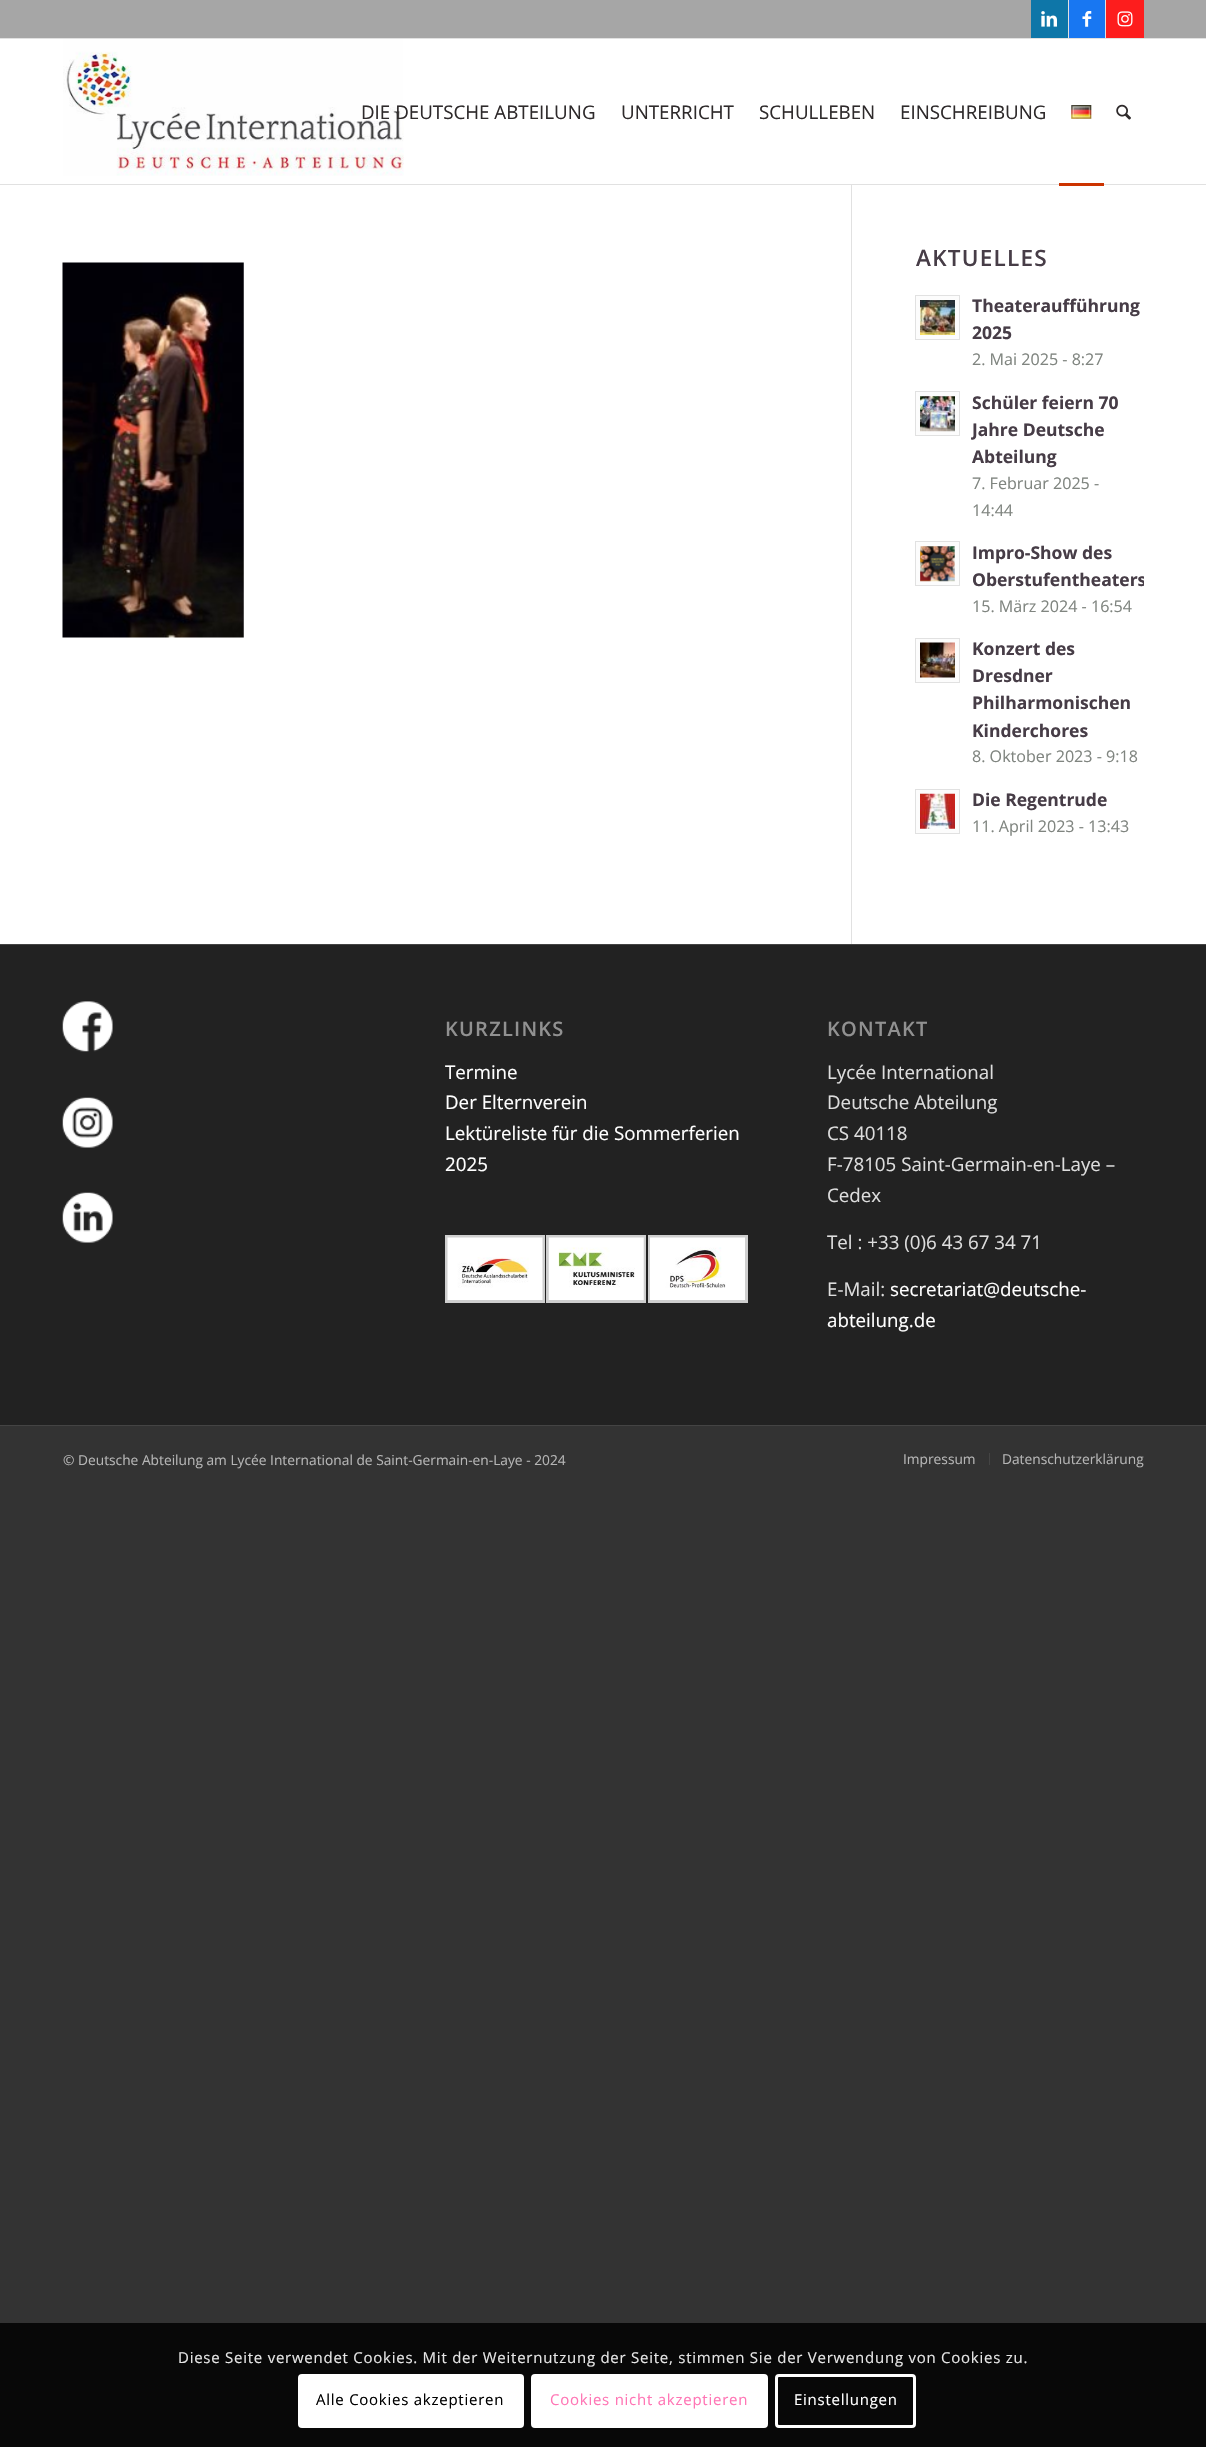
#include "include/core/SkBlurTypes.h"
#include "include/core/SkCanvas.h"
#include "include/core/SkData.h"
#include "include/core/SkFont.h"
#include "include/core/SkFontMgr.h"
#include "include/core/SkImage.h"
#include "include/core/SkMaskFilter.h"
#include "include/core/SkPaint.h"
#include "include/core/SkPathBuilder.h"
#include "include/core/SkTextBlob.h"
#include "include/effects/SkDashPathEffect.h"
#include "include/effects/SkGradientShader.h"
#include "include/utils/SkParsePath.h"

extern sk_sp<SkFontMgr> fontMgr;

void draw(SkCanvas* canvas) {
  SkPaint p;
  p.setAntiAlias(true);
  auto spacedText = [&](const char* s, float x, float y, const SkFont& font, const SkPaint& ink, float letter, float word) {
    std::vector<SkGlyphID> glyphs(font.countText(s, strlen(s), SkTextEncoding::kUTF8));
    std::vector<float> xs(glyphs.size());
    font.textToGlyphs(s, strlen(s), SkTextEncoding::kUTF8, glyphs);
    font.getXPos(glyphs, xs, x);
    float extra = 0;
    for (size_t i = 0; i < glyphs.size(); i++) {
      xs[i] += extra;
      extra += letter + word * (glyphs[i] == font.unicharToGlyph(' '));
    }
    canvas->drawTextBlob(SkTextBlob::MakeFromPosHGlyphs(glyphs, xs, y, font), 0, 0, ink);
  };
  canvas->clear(SkColorSetRGB(51, 51, 51));
  p.setColor(SkColorSetRGB(166, 166, 166));
  canvas->drawRect(SkRect::MakeLTRB(0, 0, 1206, 38), p);
  p.setColor(SkColorSetRGB(225, 225, 225));
  canvas->drawRect(SkRect::MakeLTRB(0, 38, 1206, 39), p);
  canvas->drawRect(SkRect::MakeLTRB(1068, 0, 1069, 38), p);
  p.setColor(SkColorSetRGB(14, 118, 168));
  canvas->drawRect(SkRect::MakeLTRB(1031, 0, 1068, 38), p);
  canvas->drawImageRect(SkImages::DeferredFromEncodedData(SkData::MakeFromFileName("images/1.png")), SkRect::MakeLTRB(1041, 11, 1057, 27), SkSamplingOptions());
  p.setColor(SkColorSetRGB(225, 225, 225));
  canvas->drawRect(SkRect::MakeLTRB(1105, 0, 1106, 38), p);
  p.setColor(SkColorSetRGB(24, 119, 242));
  canvas->drawRect(SkRect::MakeLTRB(1069, 0, 1105, 38), p);
  canvas->drawImageRect(SkImages::DeferredFromEncodedData(SkData::MakeFromFileName("images/2.png")), SkRect::MakeLTRB(1082, 11, 1092, 27), SkSamplingOptions());
  p.setColor(SkColorSetRGB(253, 29, 29));
  canvas->drawRect(SkRect::MakeLTRB(1106, 0, 1144, 38), p);
  canvas->drawImageRect(SkImages::DeferredFromEncodedData(SkData::MakeFromFileName("images/3.png")), SkRect::MakeLTRB(1117, 11, 1133, 27), SkSamplingOptions());
  p.setColor(SK_ColorWHITE);
  canvas->drawRect(SkRect::MakeLTRB(0, 39, 1206, 184), p);
  canvas->drawRect(SkRect::MakeLTRB(0, 185, 1206, 944), p);
  p.setColor(SkColorSetRGB(225, 225, 225));
  canvas->drawRect(SkRect::MakeLTRB(851, 184, 852, 944), p);
  canvas->drawRect(SkRect::MakeLTRB(0, 184, 1206, 185), p);
  canvas->drawImageRect(SkImages::DeferredFromEncodedData(SkData::MakeFromFileName("images/4.png")), SkRect::MakeLTRB(63, 39, 404, 176), SkSamplingOptions());
  canvas->drawImageRect(SkImages::DeferredFromEncodedData(SkData::MakeFromFileName("images/5.png")), SkRect::MakeLTRB(1071, 105, 1092, 119), SkSamplingOptions());
  p.setColor(SkColorSetRGB(204, 51, 0));
  canvas->drawRect(SkRect::MakeLTRB(1059, 183, 1104, 186), p);
  canvas->drawImageRect(SkImages::DeferredFromEncodedData(SkData::MakeFromFileName("images/6.png")), SkRect::MakeLTRB(1116, 104, 1131, 120), SkSamplingOptions());
  canvas->drawImageRect(SkImages::DeferredFromEncodedData(SkData::MakeFromFileName("images/7.png")), SkRect::MakeLTRB(62, 262, 244, 638), SkSamplingOptions());
  p.setColor(SkColorSetRGB(252, 252, 252));
  canvas->drawRect(SkRect::MakeLTRB(915.5f, 295.5f, 959.5f, 339.5f), p);
  p.setStyle(SkPaint::kStroke_Style);
  p.setStrokeWidth(1);
  p.setColor(SkColorSetRGB(225, 225, 225));
  canvas->drawRect(SkRect::MakeLTRB(915.5f, 295.5f, 959.5f, 339.5f), p);
  canvas->drawImageRect(SkImages::DeferredFromEncodedData(SkData::MakeFromFileName("images/8.png")), SkRect::MakeLTRB(920, 300, 955, 335), SkSamplingOptions());
  p.setStyle(SkPaint::kFill_Style);
  p.setColor(SkColorSetRGB(252, 252, 252));
  canvas->drawRect(SkRect::MakeLTRB(915.5f, 391.5f, 959.5f, 435.5f), p);
  p.setStyle(SkPaint::kStroke_Style);
  p.setColor(SkColorSetRGB(225, 225, 225));
  canvas->drawRect(SkRect::MakeLTRB(915.5f, 391.5f, 959.5f, 435.5f), p);
  canvas->drawImageRect(SkImages::DeferredFromEncodedData(SkData::MakeFromFileName("images/9.png")), SkRect::MakeLTRB(920, 396, 955, 432), SkSamplingOptions());
  p.setStyle(SkPaint::kFill_Style);
  p.setColor(SkColorSetRGB(252, 252, 252));
  canvas->drawRect(SkRect::MakeLTRB(915.5f, 541.5f, 959.5f, 585.5f), p);
  p.setStyle(SkPaint::kStroke_Style);
  p.setColor(SkColorSetRGB(225, 225, 225));
  canvas->drawRect(SkRect::MakeLTRB(915.5f, 541.5f, 959.5f, 585.5f), p);
  canvas->drawImageRect(SkImages::DeferredFromEncodedData(SkData::MakeFromFileName("images/10.png")), SkRect::MakeLTRB(920, 546, 955, 582), SkSamplingOptions());
  p.setStyle(SkPaint::kFill_Style);
  p.setColor(SkColorSetRGB(252, 252, 252));
  canvas->drawRect(SkRect::MakeLTRB(915.5f, 638.5f, 959.5f, 682.5f), p);
  p.setStyle(SkPaint::kStroke_Style);
  p.setColor(SkColorSetRGB(225, 225, 225));
  canvas->drawRect(SkRect::MakeLTRB(915.5f, 638.5f, 959.5f, 682.5f), p);
  canvas->drawImageRect(SkImages::DeferredFromEncodedData(SkData::MakeFromFileName("images/11.png")), SkRect::MakeLTRB(920, 642, 955, 678), SkSamplingOptions());
  p.setStyle(SkPaint::kFill_Style);
  p.setColor(SkColorSetRGB(252, 252, 252));
  canvas->drawRect(SkRect::MakeLTRB(915.5f, 789.5f, 959.5f, 833.5f), p);
  p.setStyle(SkPaint::kStroke_Style);
  p.setColor(SkColorSetRGB(225, 225, 225));
  canvas->drawRect(SkRect::MakeLTRB(915.5f, 789.5f, 959.5f, 833.5f), p);
  canvas->drawImageRect(SkImages::DeferredFromEncodedData(SkData::MakeFromFileName("images/12.png")), SkRect::MakeLTRB(920, 793, 955, 829), SkSamplingOptions());
  p.setStyle(SkPaint::kFill_Style);
  p.setColor(SkColorSetRGB(34, 34, 34));
  canvas->drawRect(SkRect::MakeLTRB(0, 945, 1206, 1425), p);
  p.setColor(SkColorSetRGB(68, 68, 68));
  canvas->drawRect(SkRect::MakeLTRB(0, 944, 1206, 945), p);
  canvas->drawImageRect(SkImages::DeferredFromEncodedData(SkData::MakeFromFileName("images/13.png")), SkRect::MakeLTRB(62, 1001, 113, 1052), SkSamplingOptions());
  canvas->drawImageRect(SkImages::DeferredFromEncodedData(SkData::MakeFromFileName("images/14.png")), SkRect::MakeLTRB(62, 1097, 113, 1148), SkSamplingOptions());
  canvas->drawImageRect(SkImages::DeferredFromEncodedData(SkData::MakeFromFileName("images/15.png")), SkRect::MakeLTRB(62, 1192, 113, 1243), SkSamplingOptions());
  p.setStyle(SkPaint::kStroke_Style);
  p.setStrokeWidth(3);
  p.setColor(SkColorSetRGB(207, 207, 207));
  canvas->drawRect(SkRect::MakeLTRB(446.5f, 1236.5f, 543.5f, 1301.5f), p);
  canvas->drawImageRect(SkImages::DeferredFromEncodedData(SkData::MakeFromFileName("images/16.png")), SkRect::MakeLTRB(447, 1237, 543, 1300), SkSamplingOptions());
  canvas->drawRect(SkRect::MakeLTRB(547.5f, 1236.5f, 644.5f, 1301.5f), p);
  canvas->drawImageRect(SkImages::DeferredFromEncodedData(SkData::MakeFromFileName("images/17.png")), SkRect::MakeLTRB(548, 1237, 644, 1300), SkSamplingOptions());
  canvas->drawRect(SkRect::MakeLTRB(649.5f, 1236.5f, 746.5f, 1301.5f), p);
  canvas->drawImageRect(SkImages::DeferredFromEncodedData(SkData::MakeFromFileName("images/18.png")), SkRect::MakeLTRB(650, 1237, 745, 1300), SkSamplingOptions());
  p.setStyle(SkPaint::kFill_Style);
  p.setColor(SkColorSetRGB(68, 68, 68));
  canvas->drawRect(SkRect::MakeLTRB(0, 1425, 1206, 1426), p);
  canvas->drawRect(SkRect::MakeLTRB(989, 1453, 990, 1465), p);
  p.setColor(SkColorSetRGB(8, 8, 8));
  canvas->drawRect(SkRect::MakeLTRB(0, 2323, 1206, 2447), p);
  p.setColor(SK_ColorWHITE);
  canvas->drawRoundRect(SkRect::MakeLTRB(298, 2374, 524, 2428), 4, 4, p);
  canvas->drawRoundRect(SkRect::MakeLTRB(532.5f, 2375.5f, 766.5f, 2426.5f), 2.5f, 2.5f, p);
  p.setStyle(SkPaint::kStroke_Style);
  canvas->drawRoundRect(SkRect::MakeLTRB(532.5f, 2375.5f, 766.5f, 2426.5f), 2.5f, 2.5f, p);
  canvas->drawRoundRect(SkRect::MakeLTRB(776.5f, 2375.5f, 914.5f, 2426.5f), 2.5f, 2.5f, p);
  SkFont font1(fontMgr->matchFamilyStyle("Open Sans", SkFontStyle::Normal()), 18.75f);
  font1.setSubpixel(true);
  p.setStyle(SkPaint::kFill_Style);
  p.setColor(SkColorSetRGB(46, 42, 43));
  canvas->drawString("DIE DEUTSCHE ABTEILUNG", 361, 119, font1, p);
  canvas->drawString("UNTERRICHT", 621, 119, font1, p);
  canvas->drawString("SCHULLEBEN", 759, 119, font1, p);
  canvas->drawString("EINSCHREIBUNG", 900, 119, font1, p);
  SkFont font2(fontMgr->matchFamilyStyle("Open Sans", SkFontStyle(600, SkFontStyle::kNormal_Width, SkFontStyle::kUpright_Slant)), 22.5f);
  font2.setSubpixel(true);
  p.setColor(SkColorSetRGB(71, 61, 71));
  spacedText("AKTUELLES", 916, 266, font2, p, 1.25f, 0);
  SkFont font3(fontMgr->matchFamilyStyle("Open Sans", SkFontStyle::Bold()), 17.5f);
  font3.setSubpixel(true);
  canvas->drawString("Theateraufführung", 972, 312, font3, p);
  canvas->drawString("2025", 972, 339, font3, p);
  SkFont font4(fontMgr->matchFamilyStyle("Open Sans", SkFontStyle::Normal()), 16.1f);
  font4.setSubpixel(true);
  p.setColor(SkColorSetRGB(128, 133, 128));
  canvas->drawString("2. Mai 2025 - 8:27", 972, 365, font4, p);
  p.setColor(SkColorSetRGB(71, 61, 71));
  canvas->drawString("Schüler feiern 70", 972, 409, font3, p);
  canvas->save();
  canvas->clipRect(SkRect::MakeLTRB(971, 389, 1144, 524));
  canvas->drawString("Jahre Deutsche", 972, 436, font3, p);
  canvas->restore();
  canvas->drawString("Abteilung", 972, 463, font3, p);
  p.setColor(SkColorSetRGB(128, 133, 128));
  canvas->drawString("7. Februar 2025 -", 972, 489, font4, p);
  canvas->drawString("14:44", 972, 516, font4, p);
  p.setColor(SkColorSetRGB(71, 61, 71));
  canvas->drawString("Impro-Show des", 972, 559, font3, p);
  canvas->save();
  canvas->clipRect(SkRect::MakeLTRB(971, 539, 1144, 620));
  canvas->drawString("Oberstufentheaters", 972, 586, font3, p);
  canvas->restore();
  p.setColor(SkColorSetRGB(128, 133, 128));
  canvas->drawString("15. März 2024 - 16:54", 972, 612, font4, p);
  p.setColor(SkColorSetRGB(71, 61, 71));
  canvas->drawString("Konzert des", 972, 655, font3, p);
  canvas->drawString("Dresdner", 972, 682, font3, p);
  canvas->drawString("Philharmonischen", 972, 709, font3, p);
  canvas->drawString("Kinderchores", 972, 737, font3, p);
  p.setColor(SkColorSetRGB(128, 133, 128));
  canvas->drawString("8. Oktober 2023 - 9:18", 972, 762, font4, p);
  p.setColor(SkColorSetRGB(71, 61, 71));
  canvas->drawString("Die Regentrude", 972, 806, font3, p);
  p.setColor(SkColorSetRGB(128, 133, 128));
  canvas->drawString("11. April 2023 - 13:43", 972, 832, font4, p);
  SkFont font5(fontMgr->matchFamilyStyle("Open Sans", SkFontStyle(600, SkFontStyle::kNormal_Width, SkFontStyle::kUpright_Slant)), 20);
  font5.setSubpixel(true);
  p.setColor(SkColorSetRGB(145, 145, 145));
  spacedText("KURZLINKS", 445, 1036, font5, p, 1.25f, 0);
  p.setColor(SK_ColorWHITE);
  canvas->drawString("Termine", 445, 1079, font1, p);
  canvas->drawString("Der Elternverein", 445, 1109, font1, p);
  canvas->drawString("Lektüreliste für die Sommerferien", 445, 1140, font1, p);
  canvas->drawString("2025", 445, 1171, font1, p);
  p.setColor(SkColorSetRGB(145, 145, 145));
  spacedText("KONTAKT", 827, 1036, font5, p, 1.25f, 0);
  p.setColor(SkColorSetRGB(221, 221, 221));
  canvas->drawString("Lycée International", 827, 1079, font1, p);
  canvas->drawString("Deutsche Abteilung", 827, 1109, font1, p);
  canvas->drawString("CS 40118", 827, 1140, font1, p);
  canvas->drawString("F-78105 Saint-Germain-en-Laye –", 827, 1171, font1, p);
  canvas->drawString("Cedex", 827, 1202, font1, p);
  canvas->drawString("Tel : +33 (0)6 43 67 34 71", 827, 1249, font1, p);
  canvas->drawString("E-Mail:", 827, 1296, font1, p);
  p.setColor(SK_ColorWHITE);
  canvas->drawString("secretariat@deutsche-", 890, 1296, font1, p);
  canvas->drawString("abteilung.de", 827, 1327, font1, p);
  SkFont font6(fontMgr->matchFamilyStyle("Open Sans", SkFontStyle::Normal()), 13.75f);
  font6.setSubpixel(true);
  p.setColor(SkColorSetRGB(181, 181, 181));
  canvas->drawString("© Deutsche Abteilung am Lycée International de Saint-Germain-en-Laye - 2024", 63, 1465, font6, p);
  canvas->drawString("Impressum", 903, 1464, font6, p);
  canvas->drawString("Datenschutzerklärung", 1002, 1464, font6, p);
  SkFont font7(fontMgr->matchFamilyStyle("Open Sans", SkFontStyle::Normal()), 15);
  font7.setSubpixel(true);
  p.setColor(SkColorSetRGB(230, 230, 230));
  spacedText("Diese Seite verwendet Cookies. Mit der Weiternutzung der Seite, stimmen Sie der Verwendung von Cookies zu.", 178, 2363, font7, p, 0.75f, 0);
  p.setColor(SK_ColorBLACK);
  spacedText("Alle Cookies akzeptieren", 316, 2405, font7, p, 0.75f, 0);
  p.setColor(SkColorSetRGB(255, 117, 181));
  spacedText("Cookies nicht akzeptieren", 550, 2405, font7, p, 0.75f, 0);
  p.setColor(SK_ColorWHITE);
  spacedText("Einstellungen", 794, 2405, font7, p, 0.75f, 0);
}
